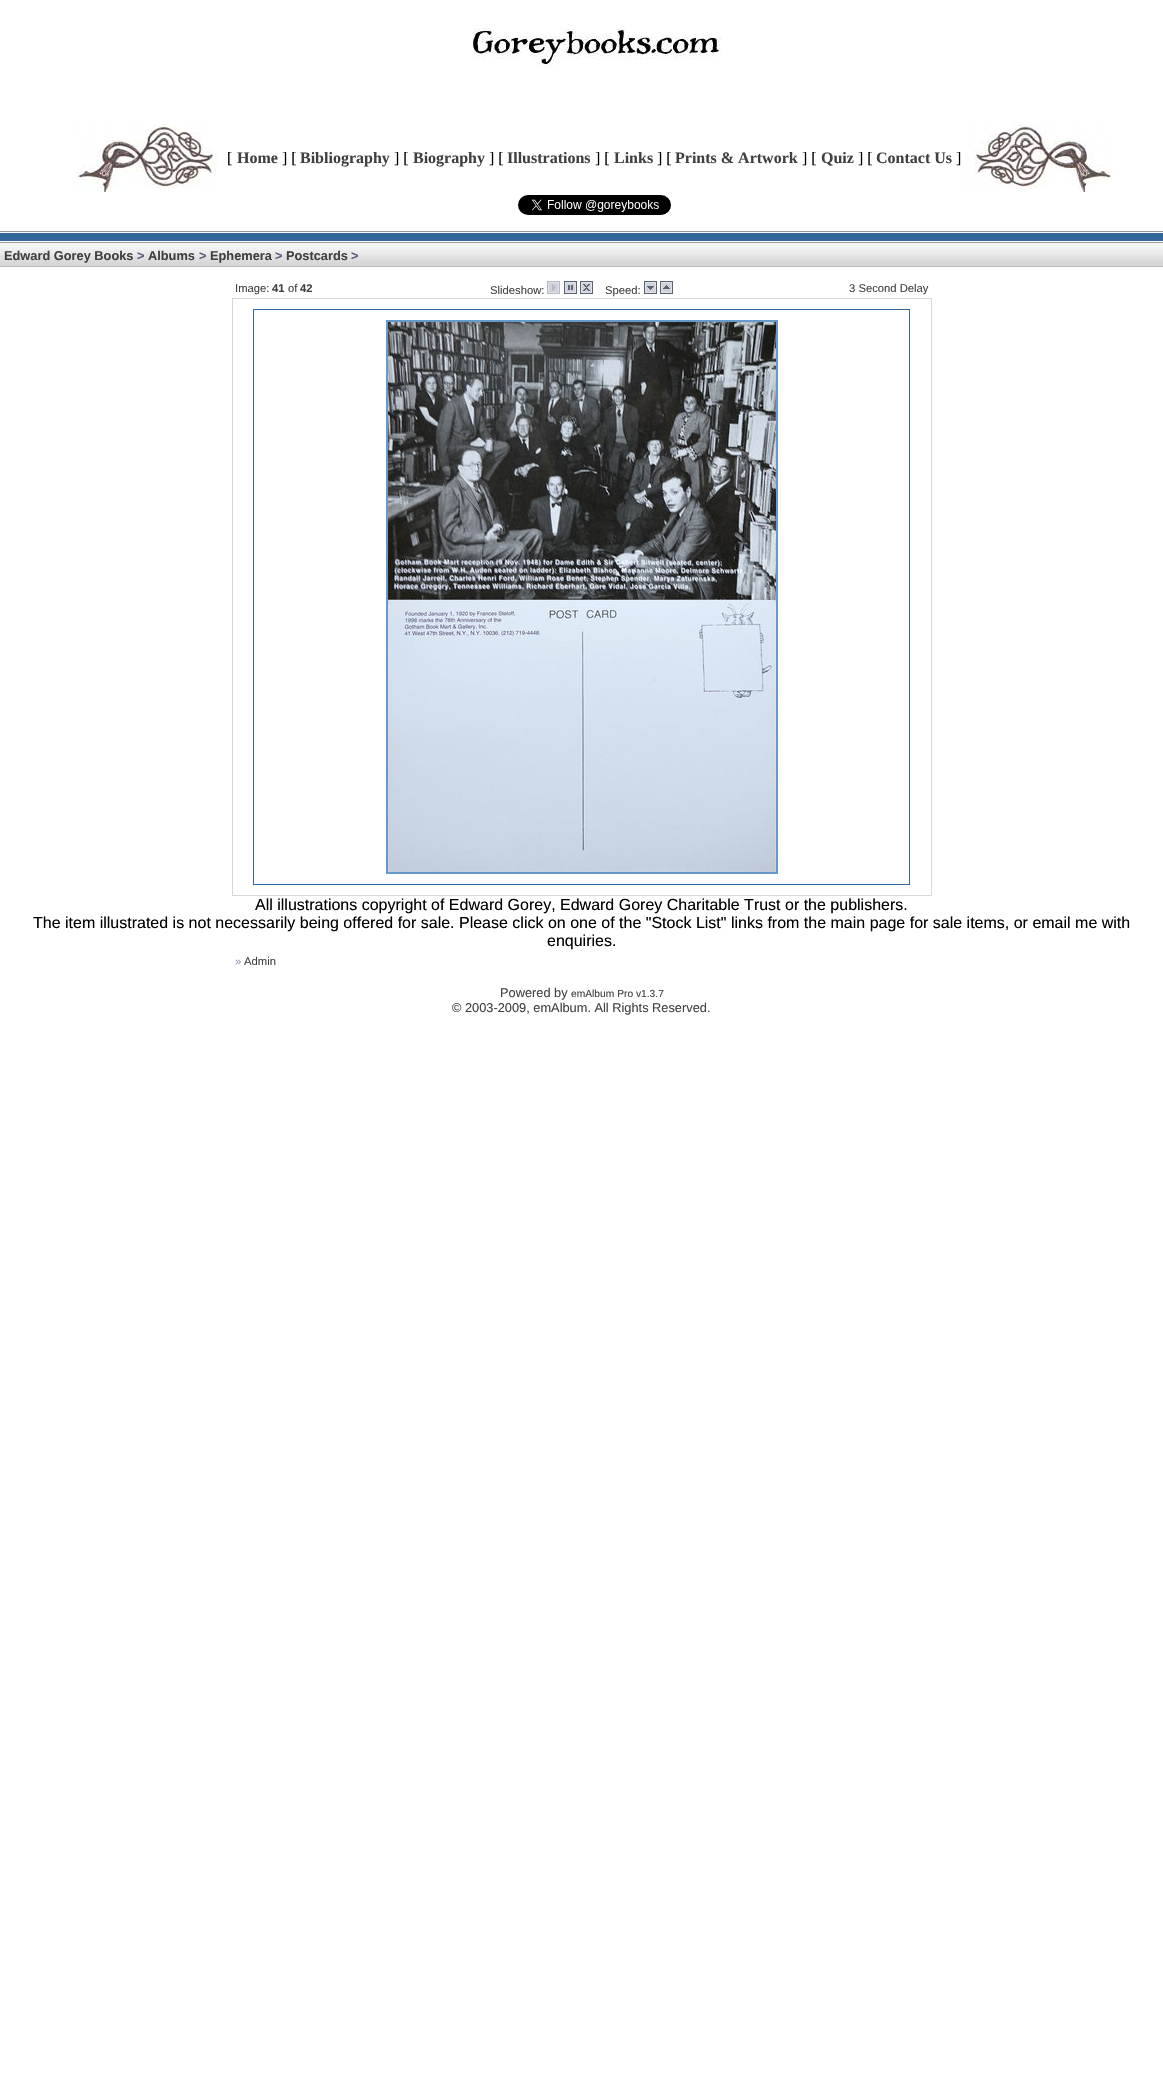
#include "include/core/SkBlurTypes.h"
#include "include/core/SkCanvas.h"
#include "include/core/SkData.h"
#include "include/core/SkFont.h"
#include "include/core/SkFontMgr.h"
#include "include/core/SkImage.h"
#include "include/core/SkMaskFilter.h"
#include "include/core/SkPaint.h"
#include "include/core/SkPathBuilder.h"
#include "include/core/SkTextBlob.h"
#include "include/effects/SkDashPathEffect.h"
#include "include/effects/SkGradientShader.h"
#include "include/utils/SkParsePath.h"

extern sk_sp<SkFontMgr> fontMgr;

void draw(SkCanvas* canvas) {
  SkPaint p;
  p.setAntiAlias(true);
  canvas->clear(SK_ColorWHITE);
  canvas->drawImageRect(SkImages::DeferredFromEncodedData(SkData::MakeFromFileName("images/1.png")), SkRect::MakeLTRB(473, 28, 721, 68), SkSamplingOptions());
  canvas->drawImageRect(SkImages::DeferredFromEncodedData(SkData::MakeFromFileName("images/2.png")), SkRect::MakeLTRB(73, 124, 217, 192), SkSamplingOptions());
  canvas->drawImageRect(SkImages::DeferredFromEncodedData(SkData::MakeFromFileName("images/3.png")), SkRect::MakeLTRB(966, 124, 1115, 192), SkSamplingOptions());
  canvas->drawImageRect(SkImages::DeferredFromEncodedData(SkData::MakeFromFileName("images/4.png")), SkRect::MakeLTRB(518, 195, 671, 215), SkSamplingOptions());
  canvas->drawImageRect(SkImages::DeferredFromEncodedData(SkData::MakeFromFileName("images/5.png")), SkRect::MakeLTRB(0, 231, 1163, 243), SkSamplingOptions());
  canvas->drawImageRect(SkImages::DeferredFromEncodedData(SkData::MakeFromFileName("images/6.png")), SkRect::MakeLTRB(0, 243, 1163, 267), SkSamplingOptions());
  canvas->drawImageRect(SkImages::DeferredFromEncodedData(SkData::MakeFromFileName("images/7.png")), SkRect::MakeLTRB(547, 281, 560, 294), SkSamplingOptions());
  canvas->drawImageRect(SkImages::DeferredFromEncodedData(SkData::MakeFromFileName("images/8.png")), SkRect::MakeLTRB(564, 281, 577, 294), SkSamplingOptions());
  canvas->drawImageRect(SkImages::DeferredFromEncodedData(SkData::MakeFromFileName("images/9.png")), SkRect::MakeLTRB(580, 281, 593, 294), SkSamplingOptions());
  canvas->drawImageRect(SkImages::DeferredFromEncodedData(SkData::MakeFromFileName("images/10.png")), SkRect::MakeLTRB(644, 281, 657, 294), SkSamplingOptions());
  canvas->drawImageRect(SkImages::DeferredFromEncodedData(SkData::MakeFromFileName("images/11.png")), SkRect::MakeLTRB(660, 281, 673, 294), SkSamplingOptions());
  p.setStyle(SkPaint::kStroke_Style);
  p.setStrokeWidth(1);
  p.setColor(SkColorSetRGB(216, 216, 216));
  canvas->drawRect(SkRect::MakeLTRB(232.5f, 298.5f, 931.5f, 895.5f), p);
  p.setColor(SkColorSetRGB(51, 102, 153));
  canvas->drawRect(SkRect::MakeLTRB(253.5f, 309.5f, 909.5f, 884.5f), p);
  p.setStrokeWidth(2);
  p.setColor(SkColorSetRGB(102, 153, 204));
  canvas->drawRect(SkRect::MakeLTRB(387, 321, 777, 873), p);
  canvas->drawImageRect(SkImages::DeferredFromEncodedData(SkData::MakeFromFileName("images/12.png")), SkRect::MakeLTRB(388, 322, 776, 872), SkSamplingOptions());
  SkFont font1(fontMgr->matchFamilyStyle("Liberation Serif", SkFontStyle::Normal()), 16);
  font1.setSubpixel(true);
  p.setStyle(SkPaint::kFill_Style);
  p.setColor(SK_ColorBLACK);
  canvas->drawString("[", 227, 163, font1, p);
  SkFont font2(fontMgr->matchFamilyStyle("Liberation Serif", SkFontStyle::Bold()), 16);
  font2.setSubpixel(true);
  p.setColor(SkColorSetRGB(64, 64, 64));
  canvas->drawString("Home", 237, 163, font2, p);
  p.setColor(SK_ColorBLACK);
  canvas->drawString("] [", 282, 163, font1, p);
  p.setColor(SkColorSetRGB(64, 64, 64));
  canvas->drawString("Bibliography", 300, 163, font2, p);
  p.setColor(SK_ColorBLACK);
  canvas->drawString("] [", 394, 163, font1, p);
  p.setColor(SkColorSetRGB(64, 64, 64));
  canvas->drawString("Biography", 413, 163, font2, p);
  p.setColor(SK_ColorBLACK);
  canvas->drawString("] [", 489, 163, font1, p);
  p.setColor(SkColorSetRGB(64, 64, 64));
  canvas->drawString("Illustrations", 507, 163, font2, p);
  p.setColor(SK_ColorBLACK);
  canvas->drawString("] [", 595, 163, font1, p);
  p.setColor(SkColorSetRGB(64, 64, 64));
  canvas->drawString("Links", 614, 163, font2, p);
  p.setColor(SK_ColorBLACK);
  canvas->drawString("] [", 657, 163, font1, p);
  p.setColor(SkColorSetRGB(64, 64, 64));
  canvas->drawString("Prints & Artwork", 675, 163, font2, p);
  p.setColor(SK_ColorBLACK);
  canvas->drawString("] [", 802, 163, font1, p);
  p.setColor(SkColorSetRGB(64, 64, 64));
  canvas->drawString("Quiz", 821, 163, font2, p);
  p.setColor(SK_ColorBLACK);
  canvas->drawString("] [", 858, 163, font1, p);
  p.setColor(SkColorSetRGB(64, 64, 64));
  canvas->drawString("Contact Us", 876, 163, font2, p);
  p.setColor(SK_ColorBLACK);
  canvas->drawString("]", 956, 163, font1, p);
  SkFont font3(fontMgr->matchFamilyStyle("Liberation Sans", SkFontStyle::Bold()), 12.8f);
  font3.setSubpixel(true);
  p.setColor(SkColorSetRGB(64, 64, 64));
  canvas->drawString("Edward Gorey Books", 4, 260, font3, p);
  p.setColor(SkColorSetRGB(93, 93, 120));
  canvas->drawString(">", 137, 260, font3, p);
  p.setColor(SkColorSetRGB(64, 64, 64));
  canvas->drawString("Albums", 148, 260, font3, p);
  p.setColor(SkColorSetRGB(93, 93, 120));
  canvas->drawString(">", 199, 260, font3, p);
  p.setColor(SkColorSetRGB(64, 64, 64));
  canvas->drawString("Ephemera", 210, 260, font3, p);
  p.setColor(SkColorSetRGB(93, 93, 120));
  canvas->drawString(">", 275, 260, font3, p);
  p.setColor(SkColorSetRGB(64, 64, 64));
  canvas->drawString("Postcards", 286, 260, font3, p);
  p.setColor(SkColorSetRGB(93, 93, 120));
  canvas->drawString(">", 351, 260, font3, p);
  SkFont font4(fontMgr->matchFamilyStyle("Liberation Sans", SkFontStyle::Normal()), 11.25f);
  font4.setSubpixel(true);
  p.setColor(SkColorSetRGB(64, 64, 64));
  canvas->drawString("Image:", 235, 292, font4, p);
  SkFont font5(fontMgr->matchFamilyStyle("Liberation Sans", SkFontStyle::Bold()), 11.25f);
  font5.setSubpixel(true);
  canvas->drawString("41", 272, 292, font5, p);
  canvas->drawString("of", 288, 292, font4, p);
  canvas->drawString("42", 300, 292, font5, p);
  canvas->drawString("Slideshow:", 490, 294, font4, p);
  canvas->drawString("Speed:", 605, 294, font4, p);
  canvas->drawString("3 Second Delay", 849, 292, font4, p);
  SkFont font6(fontMgr->matchFamilyStyle("Liberation Sans", SkFontStyle::Normal()), 16);
  font6.setSubpixel(true);
  p.setColor(SK_ColorBLACK);
  canvas->drawString("All illustrations copyright of Edward Gorey, Edward Gorey Charitable Trust or the publishers.", 255, 910, font6, p);
  canvas->drawString("The item illustrated is not necessarily being offered for sale. Please click on one of the \"Stock List\" links from the main page for sale items, or email me with", 33, 928, font6, p);
  canvas->drawString("enquiries.", 547, 946, font6, p);
  p.setColor(SkColorSetRGB(151, 156, 178));
  canvas->drawString("»", 235, 965, font4, p);
  p.setColor(SkColorSetRGB(64, 64, 64));
  canvas->drawString("Admin", 244, 965, font4, p);
  SkFont font7(fontMgr->matchFamilyStyle("Liberation Sans", SkFontStyle::Normal()), 12.8f);
  font7.setSubpixel(true);
  canvas->drawString("Powered by", 500, 997, font7, p);
  SkFont font8(fontMgr->matchFamilyStyle("Liberation Sans", SkFontStyle::Normal()), 10.25f);
  font8.setSubpixel(true);
  canvas->drawString("emAlbum Pro v1.3.7", 571, 997, font8, p);
  canvas->drawString("© 2003-2009, emAlbum. All Rights Reserved.", 452, 1012, font7, p);
}
